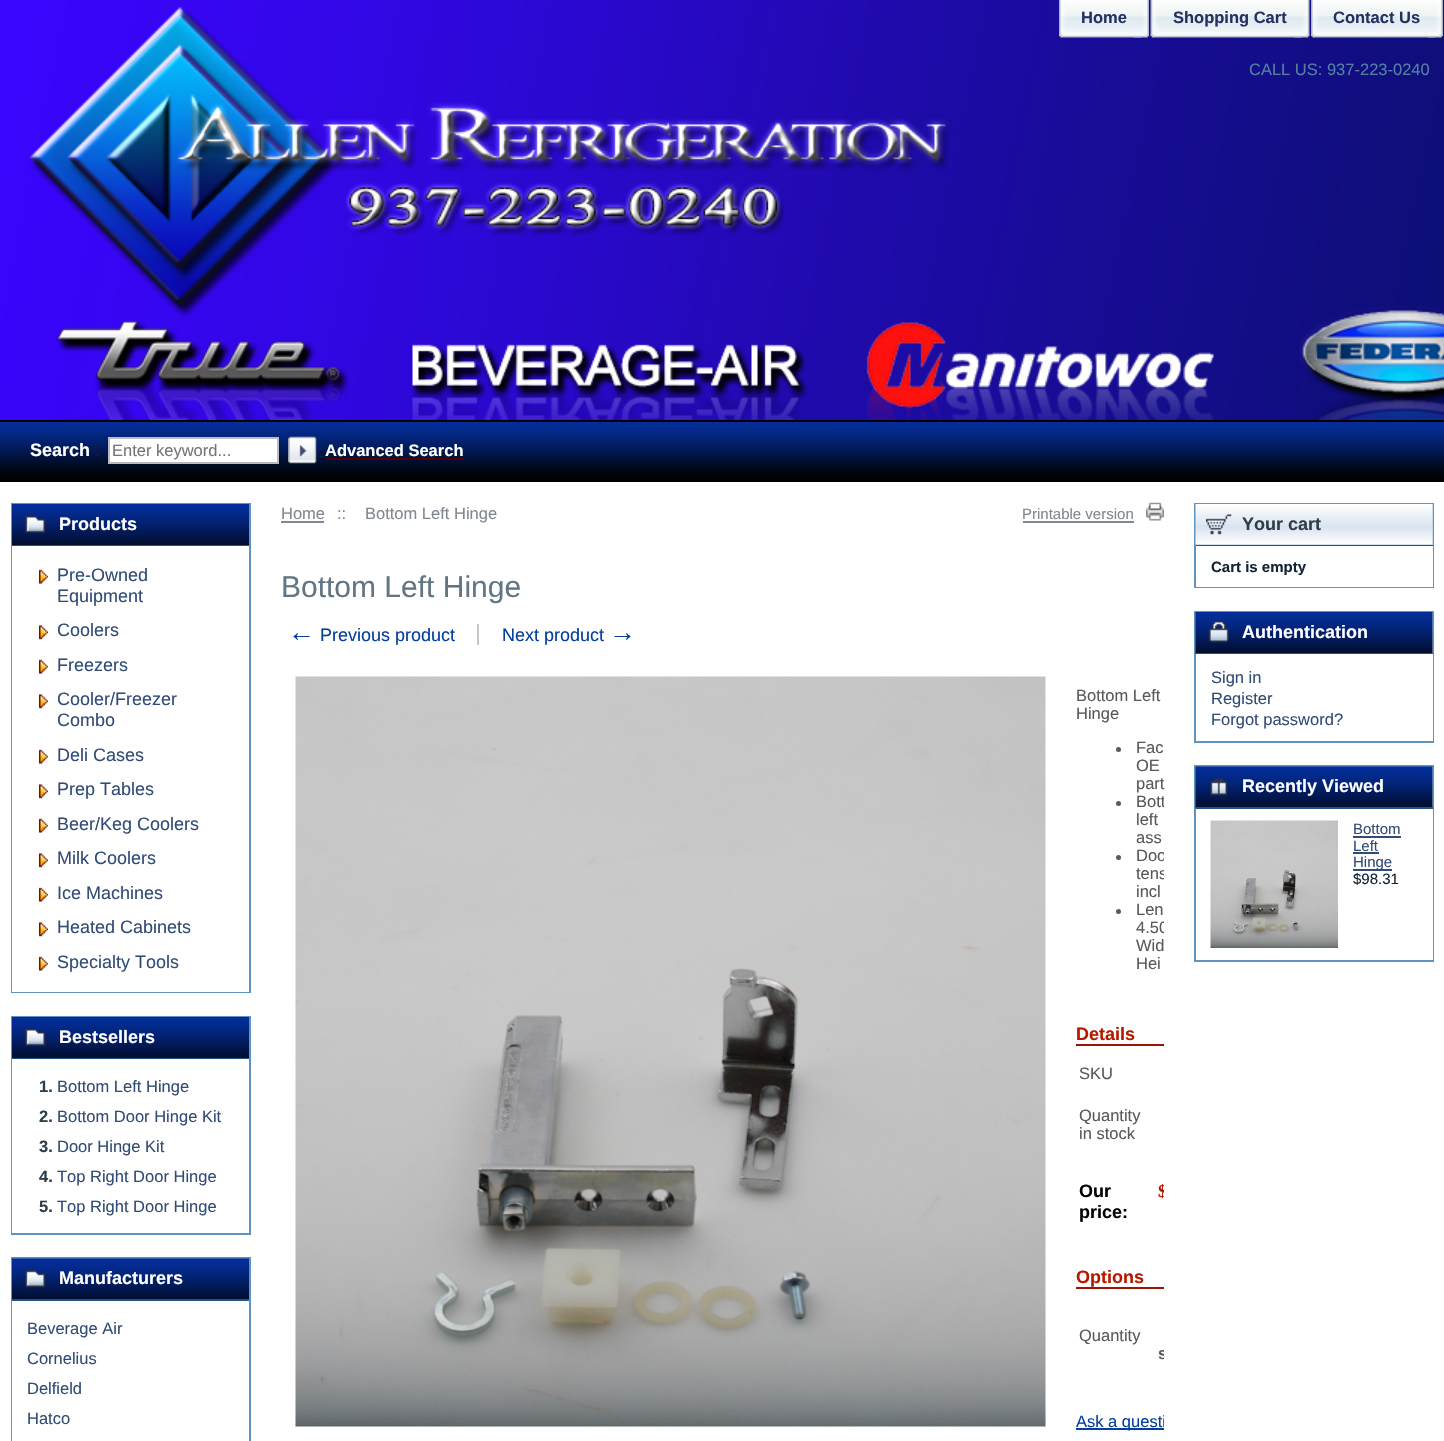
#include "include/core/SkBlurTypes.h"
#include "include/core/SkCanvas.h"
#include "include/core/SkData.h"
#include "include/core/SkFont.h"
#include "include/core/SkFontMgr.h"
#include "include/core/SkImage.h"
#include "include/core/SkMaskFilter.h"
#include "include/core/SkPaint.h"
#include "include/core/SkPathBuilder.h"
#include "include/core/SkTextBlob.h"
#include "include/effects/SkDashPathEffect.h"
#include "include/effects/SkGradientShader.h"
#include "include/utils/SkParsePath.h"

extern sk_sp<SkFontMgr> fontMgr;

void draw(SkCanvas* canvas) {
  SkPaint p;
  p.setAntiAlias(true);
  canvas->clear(SK_ColorWHITE);
  canvas->drawImageRect(SkImages::DeferredFromEncodedData(SkData::MakeFromFileName("images/1.png")), SkRect::MakeLTRB(0, 0, 1444, 420), SkSamplingOptions());
  canvas->drawImageRect(SkImages::DeferredFromEncodedData(SkData::MakeFromFileName("images/2.png")), SkRect::MakeLTRB(1134, 0, 1149, 38), SkSamplingOptions());
  canvas->drawImageRect(SkImages::DeferredFromEncodedData(SkData::MakeFromFileName("images/3.png")), SkRect::MakeLTRB(1059, 0, 1142, 38), SkSamplingOptions());
  canvas->drawImageRect(SkImages::DeferredFromEncodedData(SkData::MakeFromFileName("images/4.png")), SkRect::MakeLTRB(1294, 0, 1310, 38), SkSamplingOptions());
  canvas->drawImageRect(SkImages::DeferredFromEncodedData(SkData::MakeFromFileName("images/5.png")), SkRect::MakeLTRB(1150, 0, 1302, 38), SkSamplingOptions());
  canvas->drawImageRect(SkImages::DeferredFromEncodedData(SkData::MakeFromFileName("images/6.png")), SkRect::MakeLTRB(1428, 0, 1443, 38), SkSamplingOptions());
  canvas->drawImageRect(SkImages::DeferredFromEncodedData(SkData::MakeFromFileName("images/7.png")), SkRect::MakeLTRB(1311, 0, 1436, 38), SkSamplingOptions());
  canvas->drawImageRect(SkImages::DeferredFromEncodedData(SkData::MakeFromFileName("images/8.png")), SkRect::MakeLTRB(0, 422, 1444, 480), SkSamplingOptions());
  p.setColor(SK_ColorBLACK);
  canvas->drawRect(SkRect::MakeLTRB(0, 420, 1444, 422), p);
  canvas->drawRect(SkRect::MakeLTRB(0, 480, 1444, 482), p);
  p.setColor(SK_ColorWHITE);
  canvas->drawRect(SkRect::MakeLTRB(109, 438, 278, 463), p);
  p.setStyle(SkPaint::kStroke_Style);
  p.setStrokeWidth(2);
  p.setColor(SkColorSetRGB(187, 187, 187));
  canvas->drawRect(SkRect::MakeLTRB(109, 438, 278, 463), p);
  canvas->drawImageRect(SkImages::DeferredFromEncodedData(SkData::MakeFromFileName("images/9.png")), SkRect::MakeLTRB(288, 436, 317, 464), SkSamplingOptions());
  p.setStyle(SkPaint::kFill_Style);
  p.setColor(SkColorSetRGB(81, 0, 0));
  canvas->drawRect(SkRect::MakeLTRB(326, 458, 464, 460), p);
  p.setStyle(SkPaint::kStroke_Style);
  p.setColor(SkColorSetRGB(95, 148, 192));
  canvas->drawRect(SkRect::MakeLTRB(12, 504, 250, 992), p);
  canvas->drawImageRect(SkImages::DeferredFromEncodedData(SkData::MakeFromFileName("images/10.png")), SkRect::MakeLTRB(12, 504, 249, 545), SkSamplingOptions());
  p.setStyle(SkPaint::kFill_Style);
  p.setColor(SkColorSetRGB(33, 84, 133));
  canvas->drawRect(SkRect::MakeLTRB(12, 545, 249, 546), p);
  canvas->drawImageRect(SkImages::DeferredFromEncodedData(SkData::MakeFromFileName("images/11.png")), SkRect::MakeLTRB(25, 515, 46, 533), SkSamplingOptions());
  p.setColor(SK_ColorWHITE);
  canvas->drawRect(SkRect::MakeLTRB(12, 546, 249, 992), p);
  canvas->drawImageRect(SkImages::DeferredFromEncodedData(SkData::MakeFromFileName("images/12.png")), SkRect::MakeLTRB(39, 569, 48, 584), SkSamplingOptions());
  canvas->drawImageRect(SkImages::DeferredFromEncodedData(SkData::MakeFromFileName("images/13.png")), SkRect::MakeLTRB(39, 625, 48, 640), SkSamplingOptions());
  canvas->drawImageRect(SkImages::DeferredFromEncodedData(SkData::MakeFromFileName("images/12.png")), SkRect::MakeLTRB(39, 659, 48, 674), SkSamplingOptions());
  canvas->drawImageRect(SkImages::DeferredFromEncodedData(SkData::MakeFromFileName("images/13.png")), SkRect::MakeLTRB(39, 694, 48, 709), SkSamplingOptions());
  canvas->drawImageRect(SkImages::DeferredFromEncodedData(SkData::MakeFromFileName("images/12.png")), SkRect::MakeLTRB(39, 749, 48, 764), SkSamplingOptions());
  canvas->drawImageRect(SkImages::DeferredFromEncodedData(SkData::MakeFromFileName("images/13.png")), SkRect::MakeLTRB(39, 784, 48, 799), SkSamplingOptions());
  canvas->drawImageRect(SkImages::DeferredFromEncodedData(SkData::MakeFromFileName("images/12.png")), SkRect::MakeLTRB(39, 818, 48, 833), SkSamplingOptions());
  canvas->drawImageRect(SkImages::DeferredFromEncodedData(SkData::MakeFromFileName("images/13.png")), SkRect::MakeLTRB(39, 853, 48, 868), SkSamplingOptions());
  canvas->drawImageRect(SkImages::DeferredFromEncodedData(SkData::MakeFromFileName("images/12.png")), SkRect::MakeLTRB(39, 887, 48, 902), SkSamplingOptions());
  canvas->drawImageRect(SkImages::DeferredFromEncodedData(SkData::MakeFromFileName("images/13.png")), SkRect::MakeLTRB(39, 922, 48, 937), SkSamplingOptions());
  canvas->drawImageRect(SkImages::DeferredFromEncodedData(SkData::MakeFromFileName("images/12.png")), SkRect::MakeLTRB(39, 956, 48, 971), SkSamplingOptions());
  p.setStyle(SkPaint::kStroke_Style);
  p.setColor(SkColorSetRGB(95, 148, 192));
  canvas->drawRect(SkRect::MakeLTRB(12, 1017, 250, 1234), p);
  canvas->drawImageRect(SkImages::DeferredFromEncodedData(SkData::MakeFromFileName("images/10.png")), SkRect::MakeLTRB(12, 1017, 249, 1058), SkSamplingOptions());
  p.setStyle(SkPaint::kFill_Style);
  p.setColor(SkColorSetRGB(33, 84, 133));
  canvas->drawRect(SkRect::MakeLTRB(12, 1058, 249, 1059), p);
  canvas->drawImageRect(SkImages::DeferredFromEncodedData(SkData::MakeFromFileName("images/11.png")), SkRect::MakeLTRB(25, 1028, 46, 1046), SkSamplingOptions());
  p.setColor(SK_ColorWHITE);
  canvas->drawRect(SkRect::MakeLTRB(12, 1059, 13, 1233), p);
  p.setStyle(SkPaint::kStroke_Style);
  p.setColor(SkColorSetRGB(95, 148, 192));
  canvas->drawRect(SkRect::MakeLTRB(12, 1258, 250, 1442), p);
  canvas->drawImageRect(SkImages::DeferredFromEncodedData(SkData::MakeFromFileName("images/14.png")), SkRect::MakeLTRB(12, 1258, 249, 1299), SkSamplingOptions());
  p.setStyle(SkPaint::kFill_Style);
  p.setColor(SkColorSetRGB(33, 84, 133));
  canvas->drawRect(SkRect::MakeLTRB(12, 1299, 249, 1301), p);
  canvas->drawImageRect(SkImages::DeferredFromEncodedData(SkData::MakeFromFileName("images/15.png")), SkRect::MakeLTRB(25, 1270, 46, 1288), SkSamplingOptions());
  p.setColor(SK_ColorWHITE);
  canvas->drawRect(SkRect::MakeLTRB(12, 1301, 13, 1441), p);
  p.setColor(SkColorSetRGB(129, 136, 145));
  canvas->drawRect(SkRect::MakeLTRB(281, 521, 324, 523), p);
  canvas->drawRect(SkRect::MakeLTRB(1023, 521, 1134, 523), p);
  canvas->drawImageRect(SkImages::DeferredFromEncodedData(SkData::MakeFromFileName("images/16.png")), SkRect::MakeLTRB(1146, 502, 1164, 521), SkSamplingOptions());
  p.setColor(SkColorSetRGB(197, 197, 197));
  canvas->drawRect(SkRect::MakeLTRB(477, 624, 479, 645), p);
  canvas->drawImageRect(SkImages::DeferredFromEncodedData(SkData::MakeFromFileName("images/17.png")), SkRect::MakeLTRB(295, 676, 1046, 1427), SkSamplingOptions());
  p.setColor(SkColorSetRGB(88, 89, 91));
  canvas->drawCircle(1118.5f, 749.5f, 2.5f, p);
  canvas->drawCircle(1118.5f, 803.5f, 2.5f, p);
  canvas->drawCircle(1118.5f, 857.5f, 2.5f, p);
  canvas->drawCircle(1118.5f, 911.5f, 2.5f, p);
  p.setColor(SkColorSetRGB(157, 21, 0));
  canvas->drawRect(SkRect::MakeLTRB(1076, 1044, 1164, 1046), p);
  canvas->drawRect(SkRect::MakeLTRB(1076, 1287, 1164, 1289), p);
  p.setColor(SkColorSetRGB(4, 63, 160));
  canvas->drawRect(SkRect::MakeLTRB(1076, 1428, 1164, 1430), p);
  p.setStyle(SkPaint::kStroke_Style);
  p.setColor(SkColorSetRGB(95, 148, 192));
  canvas->drawRect(SkRect::MakeLTRB(1195, 504, 1433, 587), p);
  p.setStyle(SkPaint::kFill_Style);
  p.setColor(SkColorSetRGB(158, 198, 222));
  canvas->drawRect(SkRect::MakeLTRB(1196, 504, 1433, 545), p);
  canvas->drawImageRect(SkImages::DeferredFromEncodedData(SkData::MakeFromFileName("images/18.png")), SkRect::MakeLTRB(1195, 504, 1433, 545), SkSamplingOptions());
  p.setColor(SkColorSetRGB(33, 84, 133));
  canvas->drawRect(SkRect::MakeLTRB(1196, 545, 1433, 546), p);
  canvas->drawImageRect(SkImages::DeferredFromEncodedData(SkData::MakeFromFileName("images/19.png")), SkRect::MakeLTRB(1206, 514, 1232, 535), SkSamplingOptions());
  p.setColor(SK_ColorWHITE);
  canvas->drawRect(SkRect::MakeLTRB(1196, 546, 1433, 587), p);
  p.setStyle(SkPaint::kStroke_Style);
  p.setColor(SkColorSetRGB(95, 148, 192));
  canvas->drawRect(SkRect::MakeLTRB(1195, 612, 1433, 742), p);
  p.setStyle(SkPaint::kFill_Style);
  p.setColor(SkColorSetRGB(158, 198, 222));
  canvas->drawRect(SkRect::MakeLTRB(1432, 612, 1433, 653), p);
  canvas->drawImageRect(SkImages::DeferredFromEncodedData(SkData::MakeFromFileName("images/20.png")), SkRect::MakeLTRB(1195, 612, 1433, 654), SkSamplingOptions());
  p.setColor(SkColorSetRGB(33, 84, 133));
  canvas->drawRect(SkRect::MakeLTRB(1196, 653, 1433, 654), p);
  canvas->drawImageRect(SkImages::DeferredFromEncodedData(SkData::MakeFromFileName("images/21.png")), SkRect::MakeLTRB(1208, 620, 1229, 643), SkSamplingOptions());
  p.setColor(SK_ColorWHITE);
  canvas->drawRect(SkRect::MakeLTRB(1432, 654, 1433, 741), p);
  p.setStyle(SkPaint::kStroke_Style);
  p.setColor(SkColorSetRGB(95, 148, 192));
  canvas->drawRect(SkRect::MakeLTRB(1195, 766, 1433, 961), p);
  p.setStyle(SkPaint::kFill_Style);
  p.setColor(SkColorSetRGB(158, 198, 222));
  canvas->drawRect(SkRect::MakeLTRB(1432, 767, 1433, 807), p);
  canvas->drawImageRect(SkImages::DeferredFromEncodedData(SkData::MakeFromFileName("images/22.png")), SkRect::MakeLTRB(1195, 766, 1433, 809), SkSamplingOptions());
  p.setColor(SkColorSetRGB(33, 84, 133));
  canvas->drawRect(SkRect::MakeLTRB(1196, 807, 1433, 809), p);
  canvas->drawImageRect(SkImages::DeferredFromEncodedData(SkData::MakeFromFileName("images/23.png")), SkRect::MakeLTRB(1210, 778, 1228, 796), SkSamplingOptions());
  p.setColor(SK_ColorWHITE);
  canvas->drawRect(SkRect::MakeLTRB(1432, 809, 1433, 960), p);
  canvas->drawImageRect(SkImages::DeferredFromEncodedData(SkData::MakeFromFileName("images/24.png")), SkRect::MakeLTRB(1210, 820, 1338, 948), SkSamplingOptions());
  p.setColor(SkColorSetRGB(50, 76, 118));
  canvas->drawRect(SkRect::MakeLTRB(1353, 836, 1401, 838), p);
  canvas->drawRect(SkRect::MakeLTRB(1353, 852, 1379, 854), p);
  canvas->drawRect(SkRect::MakeLTRB(1353, 869, 1392, 871), p);
  SkFont font1(fontMgr->matchFamilyStyle("Liberation Sans", SkFontStyle::Bold()), 16.5f);
  font1.setSubpixel(true);
  p.setColor(SkColorSetRGB(37, 49, 97));
  canvas->drawString("Home", 1081, 23, font1, p);
  canvas->drawString("Shopping Cart", 1173, 23, font1, p);
  canvas->drawString("Contact Us", 1333, 23, font1, p);
  SkFont font2(fontMgr->matchFamilyStyle("Liberation Sans", SkFontStyle::Normal()), 16.5f);
  font2.setSubpixel(true);
  p.setColor(SkColorSetRGB(84, 128, 162));
  canvas->drawString("CALL US: 937-223-0240", 1249, 75, font2, p);
  SkFont font3(fontMgr->matchFamilyStyle("Liberation Sans", SkFontStyle::Bold()), 18);
  font3.setSubpixel(true);
  p.setColor(SK_ColorWHITE);
  canvas->drawString("Search", 30, 456, font3, p);
  SkFont font4(fontMgr->matchFamilyStyle("Liberation Sans", SkFontStyle::Normal()), 18);
  font4.setSubpixel(true);
  p.setColor(SkColorSetRGB(69, 19, 0));
  canvas->drawString(":", 95, 456, font4, p);
  p.setColor(SkColorSetRGB(117, 117, 117));
  canvas->drawString("Enter keyword...", 112, 456, font2, p);
  p.setColor(SK_ColorWHITE);
  canvas->drawString("Advanced Search", 325, 456, font1, p);
  canvas->drawString("Products", 59, 530, font3, p);
  p.setColor(SkColorSetRGB(50, 76, 118));
  canvas->drawString("Pre-Owned", 57, 581, font4, p);
  canvas->drawString("Equipment", 57, 602, font4, p);
  canvas->drawString("Coolers", 57, 636, font4, p);
  canvas->drawString("Freezers", 57, 671, font4, p);
  canvas->drawString("Cooler/Freezer", 57, 705, font4, p);
  canvas->drawString("Combo", 57, 726, font4, p);
  canvas->drawString("Deli Cases", 57, 761, font4, p);
  canvas->drawString("Prep Tables", 57, 795, font4, p);
  canvas->drawString("Beer/Keg Coolers", 57, 830, font4, p);
  canvas->drawString("Milk Coolers", 57, 864, font4, p);
  canvas->drawString("Ice Machines", 57, 899, font4, p);
  canvas->drawString("Heated Cabinets", 57, 933, font4, p);
  canvas->drawString("Specialty Tools", 57, 968, font4, p);
  p.setColor(SK_ColorWHITE);
  canvas->drawString("Bestsellers", 59, 1043, font3, p);
  p.setColor(SkColorSetRGB(44, 62, 73));
  canvas->drawString("1.", 39, 1092, font1, p);
  p.setColor(SkColorSetRGB(50, 76, 118));
  canvas->drawString("Bottom Left Hinge", 57, 1092, font2, p);
  p.setColor(SkColorSetRGB(44, 62, 73));
  canvas->drawString("2.", 39, 1122, font1, p);
  p.setColor(SkColorSetRGB(50, 76, 118));
  canvas->drawString("Bottom Door Hinge Kit", 57, 1122, font2, p);
  p.setColor(SkColorSetRGB(44, 62, 73));
  canvas->drawString("3.", 39, 1152, font1, p);
  p.setColor(SkColorSetRGB(50, 76, 118));
  canvas->drawString("Door Hinge Kit", 57, 1152, font2, p);
  p.setColor(SkColorSetRGB(44, 62, 73));
  canvas->drawString("4.", 39, 1182, font1, p);
  p.setColor(SkColorSetRGB(50, 76, 118));
  canvas->drawString("Top Right Door Hinge", 57, 1182, font2, p);
  p.setColor(SkColorSetRGB(44, 62, 73));
  canvas->drawString("5.", 39, 1212, font1, p);
  p.setColor(SkColorSetRGB(50, 76, 118));
  canvas->drawString("Top Right Door Hinge", 57, 1212, font2, p);
  p.setColor(SK_ColorWHITE);
  canvas->drawString("Manufacturers", 59, 1284, font3, p);
  p.setColor(SkColorSetRGB(50, 76, 118));
  canvas->drawString("Beverage Air", 27, 1334, font2, p);
  canvas->drawString("Cornelius", 27, 1364, font2, p);
  canvas->drawString("Delfield", 27, 1394, font2, p);
  canvas->drawString("Hatco", 27, 1424, font2, p);
  p.setColor(SkColorSetRGB(129, 136, 145));
  canvas->drawString("Home", 281, 519, font2, p);
  canvas->drawString("::", 337, 519, font2, p);
  canvas->drawString("Bottom Left Hinge", 365, 519, font2, p);
  SkFont font5(fontMgr->matchFamilyStyle("Liberation Sans", SkFontStyle::Normal()), 15);
  font5.setSubpixel(true);
  canvas->drawString("Printable version", 1022, 519, font5, p);
  SkFont font6(fontMgr->matchFamilyStyle("Liberation Sans", SkFontStyle::Normal()), 30);
  font6.setSubpixel(true);
  p.setColor(SkColorSetRGB(97, 118, 131));
  canvas->drawString("Bottom Left Hinge", 281, 597, font6, p);
  SkFont font7(fontMgr->matchFamilyStyle("Liberation Sans", SkFontStyle::Normal()), 27);
  font7.setSubpixel(true);
  p.setColor(SkColorSetRGB(4, 63, 160));
  canvas->drawString("←", 288, 641, font7, p);
  canvas->drawString("Previous product", 320, 641, font4, p);
  canvas->drawString("Next product", 502, 641, font4, p);
  canvas->drawString("→", 609, 641, font7, p);
  p.setColor(SkColorSetRGB(88, 89, 91));
  canvas->drawString("Bottom Left", 1076, 701, font2, p);
  canvas->drawString("Hinge", 1076, 719, font2, p);
  canvas->drawString("Fac", 1136, 753, font2, p);
  canvas->drawString("OE", 1136, 771, font2, p);
  canvas->drawString("part", 1136, 789, font2, p);
  canvas->save();
  canvas->clipRect(SkRect::MakeLTRB(281, 503, 1164, 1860));
  canvas->drawString("Bott", 1136, 807, font2, p);
  canvas->restore();
  canvas->drawString("left", 1136, 825, font2, p);
  canvas->drawString("ass", 1136, 843, font2, p);
  canvas->save();
  canvas->clipRect(SkRect::MakeLTRB(281, 503, 1164, 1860));
  canvas->drawString("Doo", 1136, 861, font2, p);
  canvas->drawString("tens", 1136, 879, font2, p);
  canvas->restore();
  canvas->drawString("incl", 1136, 897, font2, p);
  canvas->drawString("Len", 1136, 915, font2, p);
  canvas->save();
  canvas->clipRect(SkRect::MakeLTRB(281, 503, 1164, 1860));
  canvas->drawString("4.50", 1136, 933, font2, p);
  canvas->restore();
  canvas->drawString("Wid", 1136, 951, font2, p);
  canvas->drawString("Hei", 1136, 969, font2, p);
  p.setColor(SkColorSetRGB(181, 26, 0));
  canvas->drawString("Details", 1076, 1040, font3, p);
  p.setColor(SkColorSetRGB(88, 89, 91));
  canvas->drawString("SKU", 1079, 1079, font2, p);
  canvas->drawString("Quantity", 1079, 1121, font2, p);
  canvas->drawString("in stock", 1079, 1139, font2, p);
  p.setColor(SkColorSetRGB(1, 1, 1));
  canvas->drawString("Our", 1079, 1197, font3, p);
  canvas->drawString("price:", 1079, 1218, font3, p);
  canvas->save();
  canvas->clipRect(SkRect::MakeLTRB(281, 503, 1164, 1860));
  SkFont font8(fontMgr->matchFamilyStyle("Liberation Serif", SkFontStyle::Bold()), 18);
  font8.setSubpixel(true);
  p.setColor(SkColorSetRGB(181, 26, 0));
  canvas->drawString("$", 1158, 1197, font8, p);
  canvas->restore();
  canvas->drawString("Options", 1076, 1283, font3, p);
  p.setColor(SkColorSetRGB(88, 89, 91));
  canvas->drawString("Quantity", 1079, 1341, font2, p);
  canvas->save();
  canvas->clipRect(SkRect::MakeLTRB(281, 503, 1164, 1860));
  canvas->drawString("s", 1158, 1359, font1, p);
  p.setColor(SkColorSetRGB(4, 63, 160));
  canvas->drawString("Ask a questi", 1076, 1427, font2, p);
  canvas->restore();
  p.setColor(SkColorSetRGB(44, 62, 73));
  canvas->drawString("Your cart", 1242, 530, font3, p);
  SkFont font9(fontMgr->matchFamilyStyle("Liberation Sans", SkFontStyle::Bold()), 15);
  font9.setSubpixel(true);
  p.setColor(SkColorSetRGB(17, 37, 54));
  canvas->drawString("Cart is empty", 1211, 572, font9, p);
  p.setColor(SK_ColorWHITE);
  canvas->drawString("Authentication", 1242, 638, font3, p);
  p.setColor(SkColorSetRGB(50, 76, 118));
  canvas->drawString("Sign in", 1211, 683, font2, p);
  canvas->drawString("Register", 1211, 704, font2, p);
  canvas->drawString("Forgot password?", 1211, 725, font2, p);
  p.setColor(SK_ColorWHITE);
  canvas->drawString("Recently Viewed", 1242, 792, font3, p);
  p.setColor(SkColorSetRGB(50, 76, 118));
  canvas->drawString("Bottom", 1353, 834, font5, p);
  canvas->drawString("Left", 1353, 851, font5, p);
  canvas->drawString("Hinge", 1353, 867, font5, p);
  p.setColor(SkColorSetRGB(17, 37, 54));
  canvas->drawString("$98.31", 1353, 884, font5, p);
}
